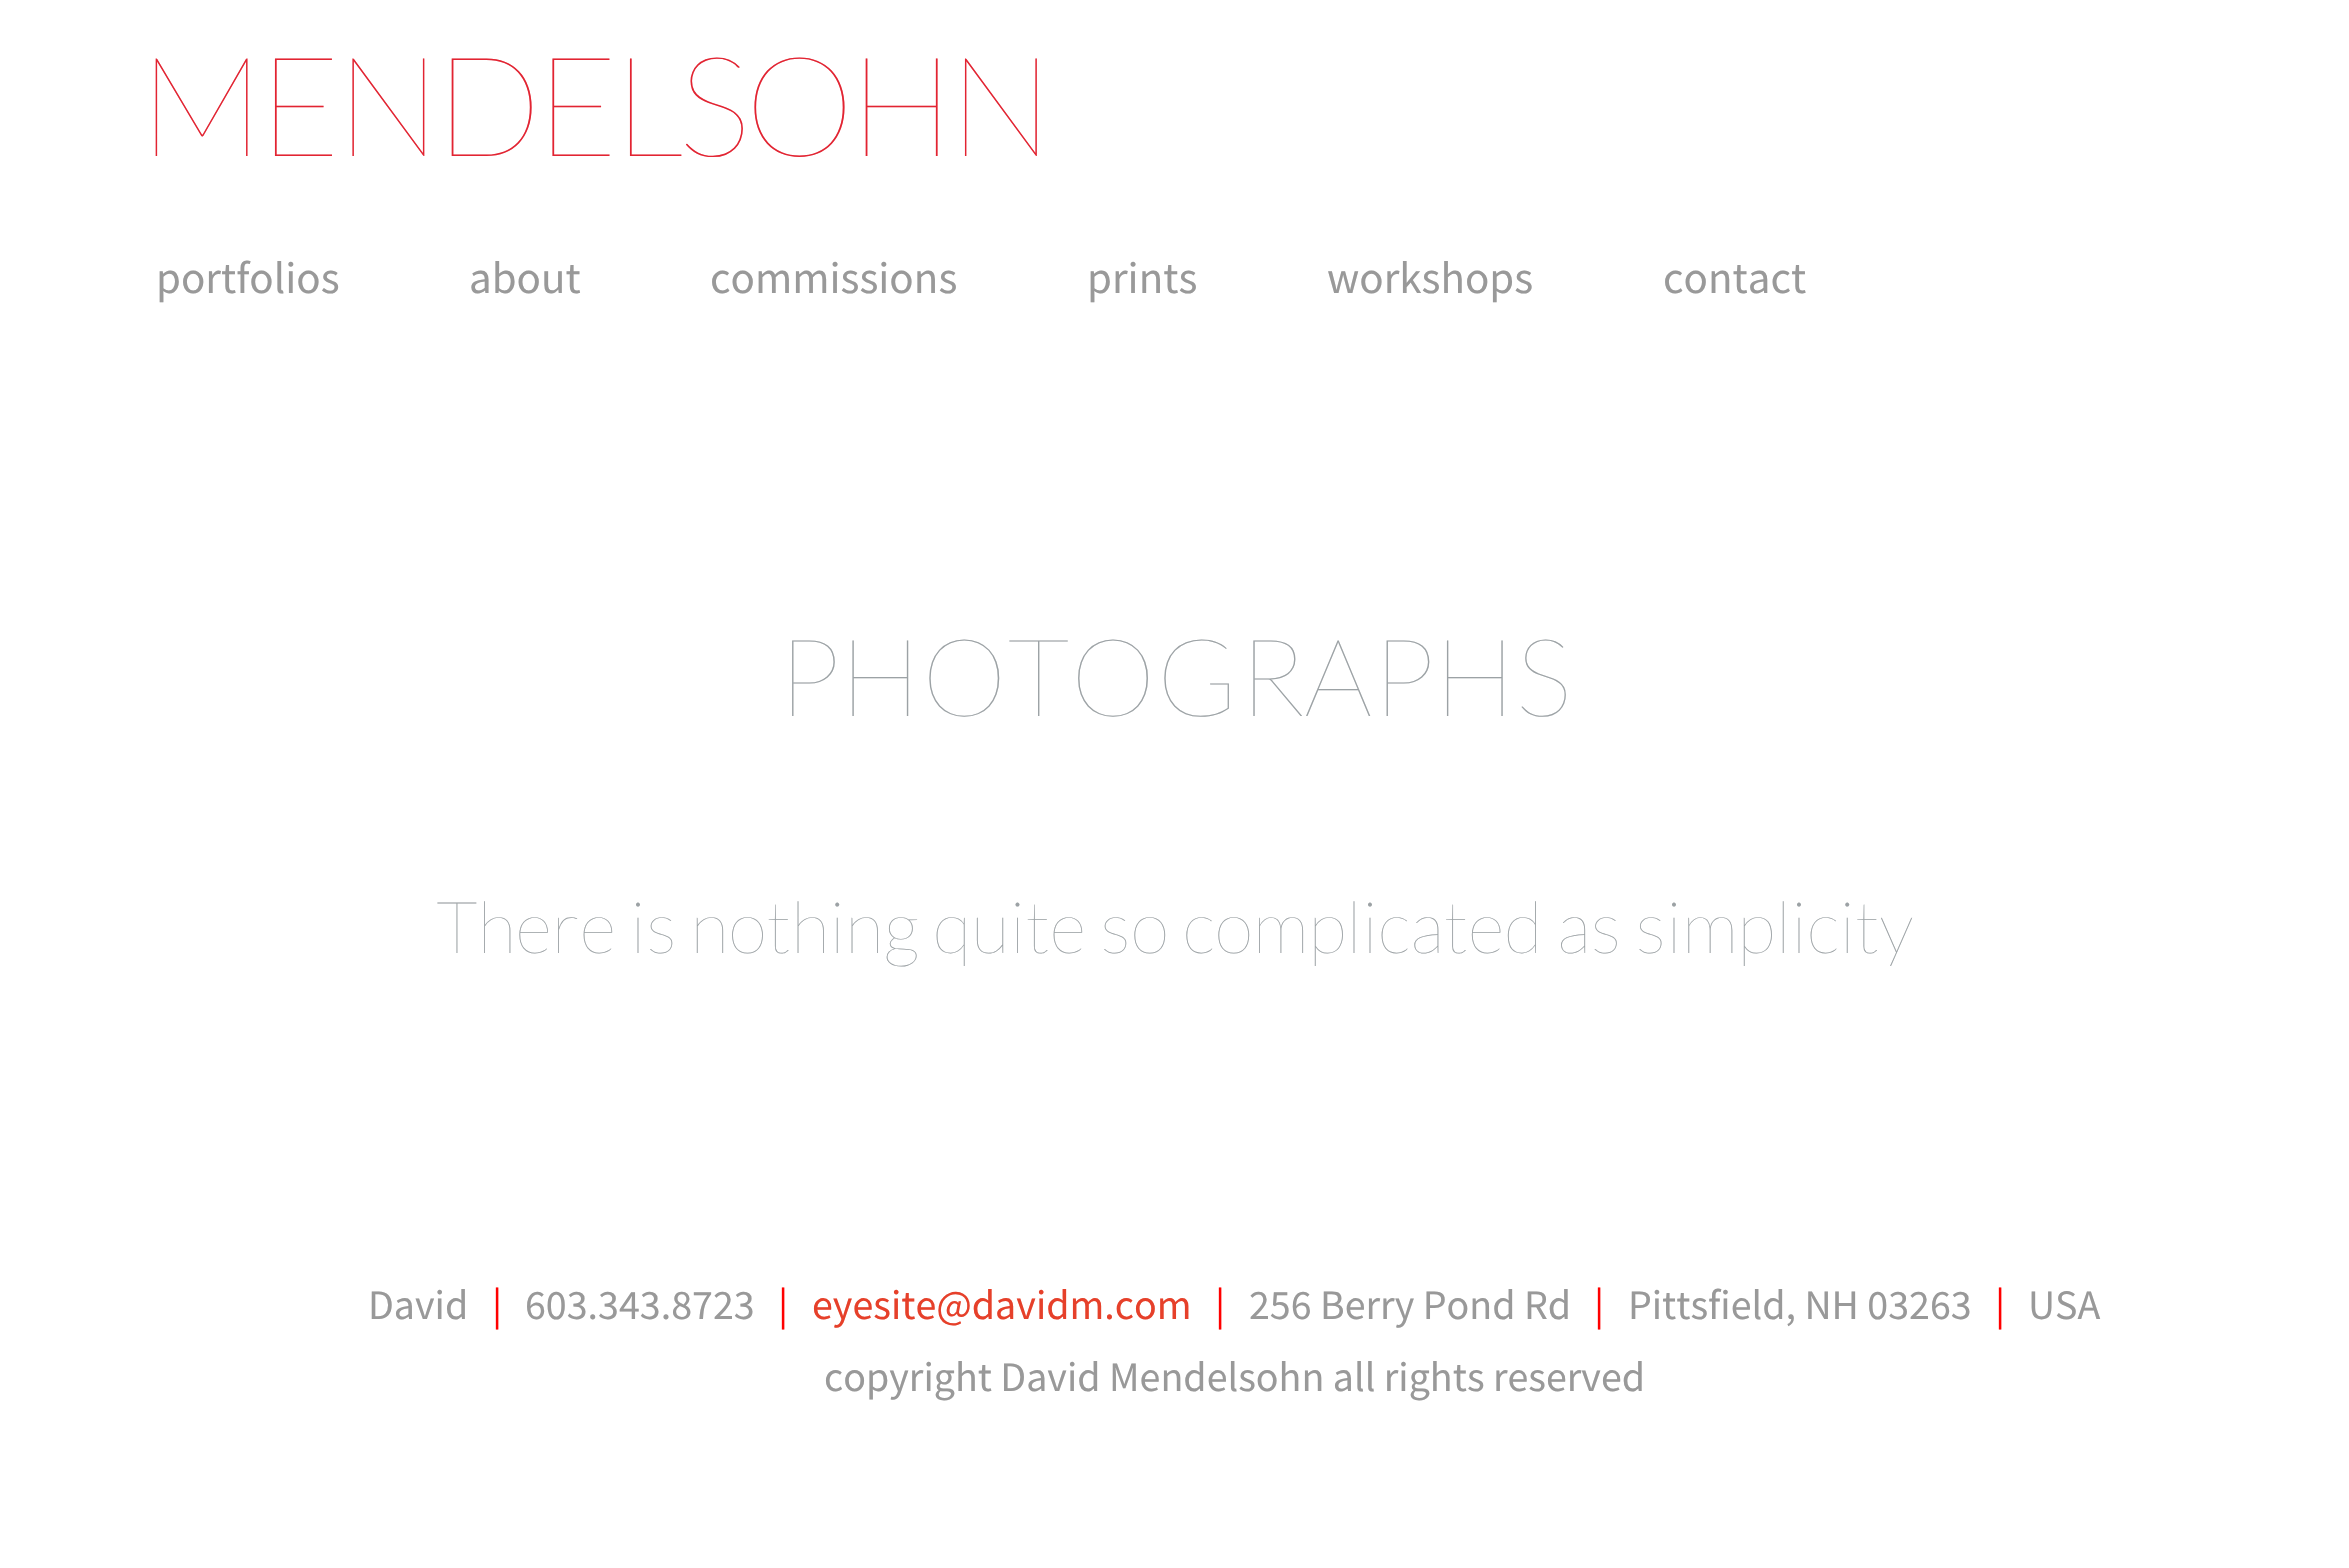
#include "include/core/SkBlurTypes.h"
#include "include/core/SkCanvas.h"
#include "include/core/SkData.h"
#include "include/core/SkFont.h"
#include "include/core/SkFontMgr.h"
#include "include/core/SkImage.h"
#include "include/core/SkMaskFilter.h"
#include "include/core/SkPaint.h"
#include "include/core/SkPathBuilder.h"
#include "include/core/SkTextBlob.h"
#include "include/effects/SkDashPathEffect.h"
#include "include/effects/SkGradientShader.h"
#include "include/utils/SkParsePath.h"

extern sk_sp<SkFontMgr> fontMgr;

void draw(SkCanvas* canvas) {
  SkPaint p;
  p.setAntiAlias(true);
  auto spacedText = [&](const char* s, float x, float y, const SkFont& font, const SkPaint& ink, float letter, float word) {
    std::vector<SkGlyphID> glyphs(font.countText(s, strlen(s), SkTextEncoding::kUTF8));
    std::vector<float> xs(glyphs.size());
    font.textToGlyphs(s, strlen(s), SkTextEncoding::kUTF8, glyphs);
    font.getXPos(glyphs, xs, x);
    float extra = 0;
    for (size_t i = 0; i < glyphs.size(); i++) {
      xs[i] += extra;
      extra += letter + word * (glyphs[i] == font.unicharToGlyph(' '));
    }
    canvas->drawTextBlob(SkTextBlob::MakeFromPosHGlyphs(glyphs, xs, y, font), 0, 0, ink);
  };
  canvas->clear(SK_ColorWHITE);
  SkFont font1(fontMgr->matchFamilyStyle("Lato", SkFontStyle(100, SkFontStyle::kNormal_Width, SkFontStyle::kUpright_Slant)), 139.25f);
  font1.setSubpixel(true);
  p.setColor(SkColorSetRGB(226, 36, 50));
  spacedText("MENDELSOHN", 139, 156, font1, p, -6, 0);
  SkFont font2(fontMgr->matchFamilyStyle("Source Sans Pro", SkFontStyle::Normal()), 45);
  font2.setSubpixel(true);
  p.setColor(SkColorSetRGB(153, 153, 153));
  canvas->drawString("portfolios", 156, 293, font2, p);
  canvas->drawString("about", 469, 293, font2, p);
  canvas->drawString("commissions", 710, 293, font2, p);
  canvas->drawString("prints", 1087, 293, font2, p);
  canvas->drawString("workshops", 1327, 293, font2, p);
  canvas->drawString("contact", 1663, 293, font2, p);
  SkFont font3(fontMgr->matchFamilyStyle("Lato", SkFontStyle(100, SkFontStyle::kNormal_Width, SkFontStyle::kUpright_Slant)), 108);
  font3.setSubpixel(true);
  p.setColor(SkColorSetRGB(156, 162, 165));
  canvas->drawString("PHOTOGRAPHS", 777, 716, font3, p);
  SkFont font4(fontMgr->matchFamilyStyle("Lato", SkFontStyle(100, SkFontStyle::kNormal_Width, SkFontStyle::kUpright_Slant)), 72);
  font4.setSubpixel(true);
  canvas->drawString("There is nothing quite so complicated as simplicity", 436, 953, font4, p);
  SkFont font5(fontMgr->matchFamilyStyle("Source Sans Pro", SkFontStyle::Normal()), 42);
  font5.setSubpixel(true);
  p.setColor(SkColorSetRGB(153, 153, 153));
  canvas->drawString("David", 368, 1319, font5, p);
  p.setColor(SkColorSetRGB(255, 0, 0));
  canvas->drawString("|", 492, 1319, font5, p);
  p.setColor(SkColorSetRGB(153, 153, 153));
  canvas->drawString("603.343.8723", 525, 1319, font5, p);
  p.setColor(SkColorSetRGB(255, 0, 0));
  canvas->drawString("|", 778, 1319, font5, p);
  p.setColor(SkColorSetRGB(230, 64, 42));
  canvas->drawString("eyesite@davidm.com", 812, 1319, font5, p);
  p.setColor(SkColorSetRGB(255, 0, 0));
  canvas->drawString("|", 1215, 1319, font5, p);
  p.setColor(SkColorSetRGB(153, 153, 153));
  canvas->drawString("256 Berry Pond Rd", 1249, 1319, font5, p);
  p.setColor(SkColorSetRGB(255, 0, 0));
  canvas->drawString("|", 1594, 1319, font5, p);
  p.setColor(SkColorSetRGB(153, 153, 153));
  canvas->drawString("Pittsfield, NH 03263", 1628, 1319, font5, p);
  p.setColor(SkColorSetRGB(255, 0, 0));
  canvas->drawString("|", 1995, 1319, font5, p);
  p.setColor(SkColorSetRGB(153, 153, 153));
  canvas->drawString("USA", 2028, 1319, font5, p);
  canvas->drawString("copyright David Mendelsohn all rights reserved", 824, 1391, font5, p);
}
